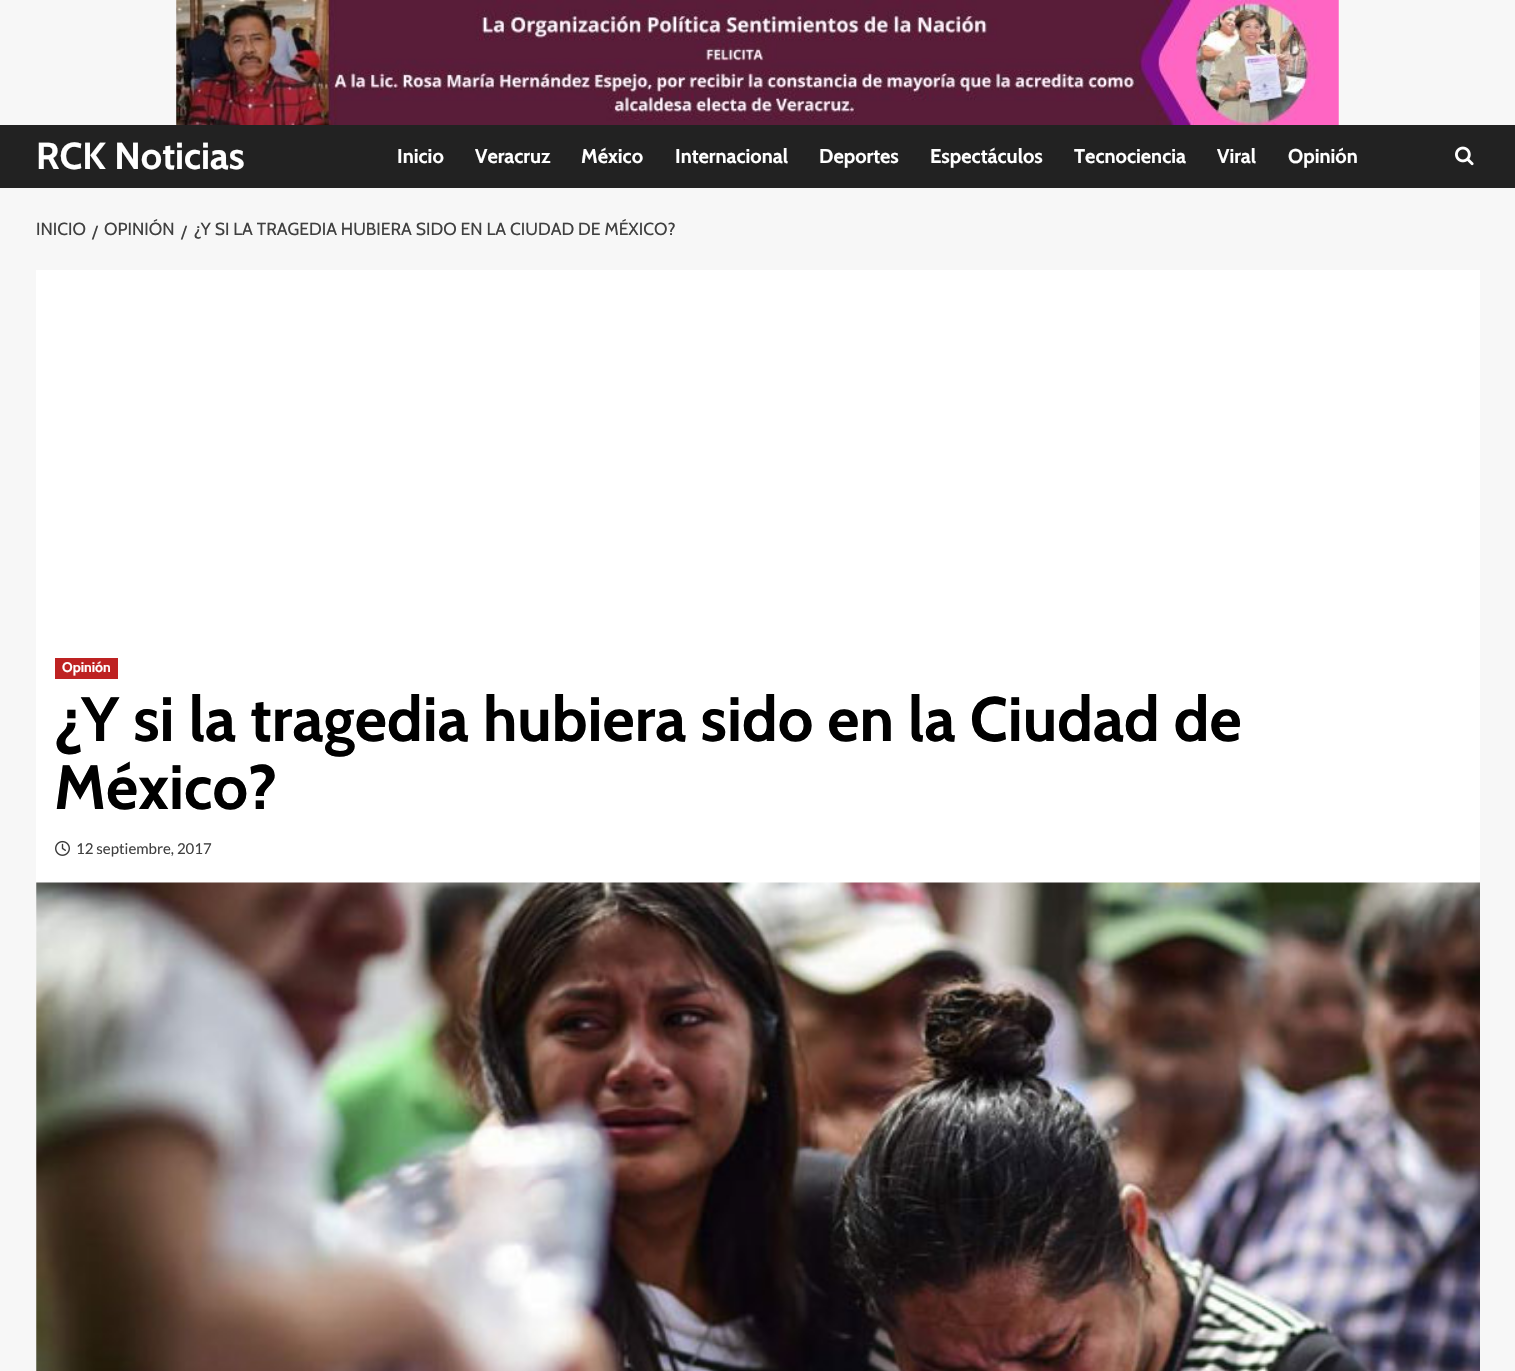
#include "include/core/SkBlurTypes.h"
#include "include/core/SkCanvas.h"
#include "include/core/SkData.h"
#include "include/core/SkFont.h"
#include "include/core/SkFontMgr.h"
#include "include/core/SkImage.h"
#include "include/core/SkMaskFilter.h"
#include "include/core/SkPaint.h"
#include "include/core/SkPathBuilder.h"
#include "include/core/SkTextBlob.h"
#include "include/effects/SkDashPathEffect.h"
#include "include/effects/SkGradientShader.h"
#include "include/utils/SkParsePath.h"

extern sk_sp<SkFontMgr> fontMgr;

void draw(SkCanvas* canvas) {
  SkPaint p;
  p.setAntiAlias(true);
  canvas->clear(SkColorSetRGB(247, 247, 247));
  canvas->drawImageRect(SkImages::DeferredFromEncodedData(SkData::MakeFromFileName("images/1.png")), SkRect::MakeLTRB(176, 0, 1339, 125), SkSamplingOptions());
  p.setColor(SkColorSetRGB(34, 34, 34));
  canvas->drawRect(SkRect::MakeLTRB(0, 125, 1515, 188), p);
  canvas->drawImageRect(SkImages::DeferredFromEncodedData(SkData::MakeFromFileName("images/2.png")), SkRect::MakeLTRB(1455, 146, 1474, 166), SkSamplingOptions());
  p.setColor(SK_ColorWHITE);
  canvas->drawRect(SkRect::MakeLTRB(36, 270, 1480, 1371), p);
  p.setColor(SkColorSetRGB(190, 34, 34));
  canvas->drawRect(SkRect::MakeLTRB(55, 658, 118, 679), p);
  canvas->drawImageRect(SkImages::DeferredFromEncodedData(SkData::MakeFromFileName("images/3.png")), SkRect::MakeLTRB(55, 840, 70, 856), SkSamplingOptions());
  canvas->drawImageRect(SkImages::DeferredFromEncodedData(SkData::MakeFromFileName("images/4.png")), SkRect::MakeLTRB(36, 882, 1480, 1371), SkSamplingOptions());
  SkFont font1(fontMgr->matchFamilyStyle("Cabin", SkFontStyle::Bold()), 37.5f);
  font1.setSubpixel(true);
  p.setColor(SK_ColorWHITE);
  canvas->drawString("RCK Noticias", 36, 169, font1, p);
  SkFont font2(fontMgr->matchFamilyStyle("Cabin", SkFontStyle::Bold()), 20);
  font2.setSubpixel(true);
  canvas->drawString("Inicio", 397, 163, font2, p);
  canvas->drawString("Veracruz", 475, 163, font2, p);
  canvas->drawString("México", 581, 163, font2, p);
  canvas->drawString("Internacional", 675, 163, font2, p);
  canvas->drawString("Deportes", 819, 163, font2, p);
  canvas->drawString("Espectáculos", 930, 163, font2, p);
  canvas->drawString("Tecnociencia", 1074, 163, font2, p);
  canvas->drawString("Viral", 1217, 163, font2, p);
  canvas->drawString("Opinión", 1288, 163, font2, p);
  SkFont font3(fontMgr->matchFamilyStyle("Cabin", SkFontStyle::Normal()), 17.5f);
  font3.setSubpixel(true);
  p.setColor(SkColorSetRGB(64, 64, 64));
  canvas->drawString("INICIO", 36, 235, font3, p);
  canvas->drawString("/", 92, 238, font3, p);
  canvas->drawString("OPINIÓN", 104, 235, font3, p);
  canvas->drawString("/", 181, 238, font3, p);
  canvas->drawString("¿Y SI LA TRAGEDIA HUBIERA SIDO EN LA CIUDAD DE MÉXICO?", 194, 235, font3, p);
  SkFont font4(fontMgr->matchFamilyStyle("Cabin", SkFontStyle::Bold()), 14);
  font4.setSubpixel(true);
  p.setColor(SK_ColorWHITE);
  canvas->drawString("Opinión", 62, 672, font4, p);
  SkFont font5(fontMgr->matchFamilyStyle("Cabin", SkFontStyle::Bold()), 62.5f);
  font5.setSubpixel(true);
  p.setColor(SK_ColorBLACK);
  canvas->drawString("¿Y si la tragedia hubiera sido en la Ciudad de", 54, 741, font5, p);
  canvas->drawString("México?", 54, 809, font5, p);
  SkFont font6(fontMgr->matchFamilyStyle("Lato", SkFontStyle::Normal()), 15);
  font6.setSubpixel(true);
  p.setColor(SkColorSetRGB(64, 64, 64));
  canvas->drawString("12 septiembre, 2017", 76, 854, font6, p);
}
